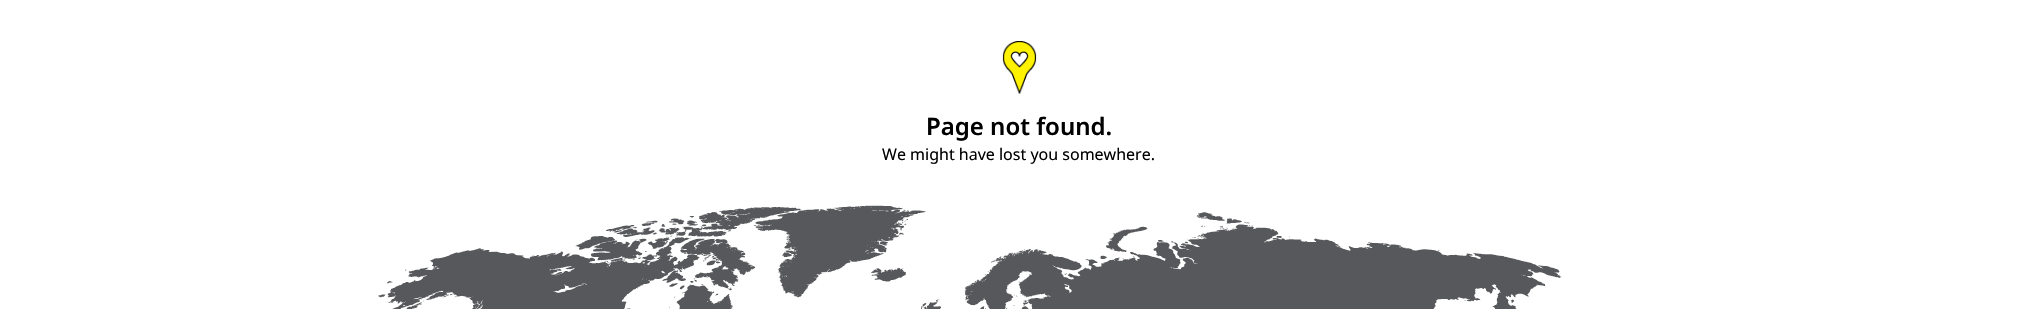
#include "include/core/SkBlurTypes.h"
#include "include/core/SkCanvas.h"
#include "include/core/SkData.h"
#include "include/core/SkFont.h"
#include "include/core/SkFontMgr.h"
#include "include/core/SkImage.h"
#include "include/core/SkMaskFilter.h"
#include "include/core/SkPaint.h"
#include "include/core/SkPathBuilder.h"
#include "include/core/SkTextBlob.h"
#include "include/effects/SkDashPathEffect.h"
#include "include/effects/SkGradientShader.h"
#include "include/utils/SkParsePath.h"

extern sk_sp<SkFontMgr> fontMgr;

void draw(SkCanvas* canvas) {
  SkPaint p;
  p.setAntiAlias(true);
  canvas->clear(SK_ColorWHITE);
  canvas->drawImageRect(SkImages::DeferredFromEncodedData(SkData::MakeFromFileName("images/1.png")), SkRect::MakeLTRB(1002, 41, 1037, 94), SkSamplingOptions());
  canvas->drawImageRect(SkImages::DeferredFromEncodedData(SkData::MakeFromFileName("images/2.png")), SkRect::MakeLTRB(378, 205, 1562, 309), SkSamplingOptions());
  SkFont font1(fontMgr->matchFamilyStyle("Noto Sans", SkFontStyle(600, SkFontStyle::kNormal_Width, SkFontStyle::kUpright_Slant)), 24);
  font1.setSubpixel(true);
  p.setColor(SK_ColorBLACK);
  canvas->drawString("Page not found.", 926, 135, font1, p);
  SkFont font2(fontMgr->matchFamilyStyle("Noto Sans", SkFontStyle::Normal()), 16);
  font2.setSubpixel(true);
  canvas->drawString("We might have lost you somewhere.", 882, 160, font2, p);
}
